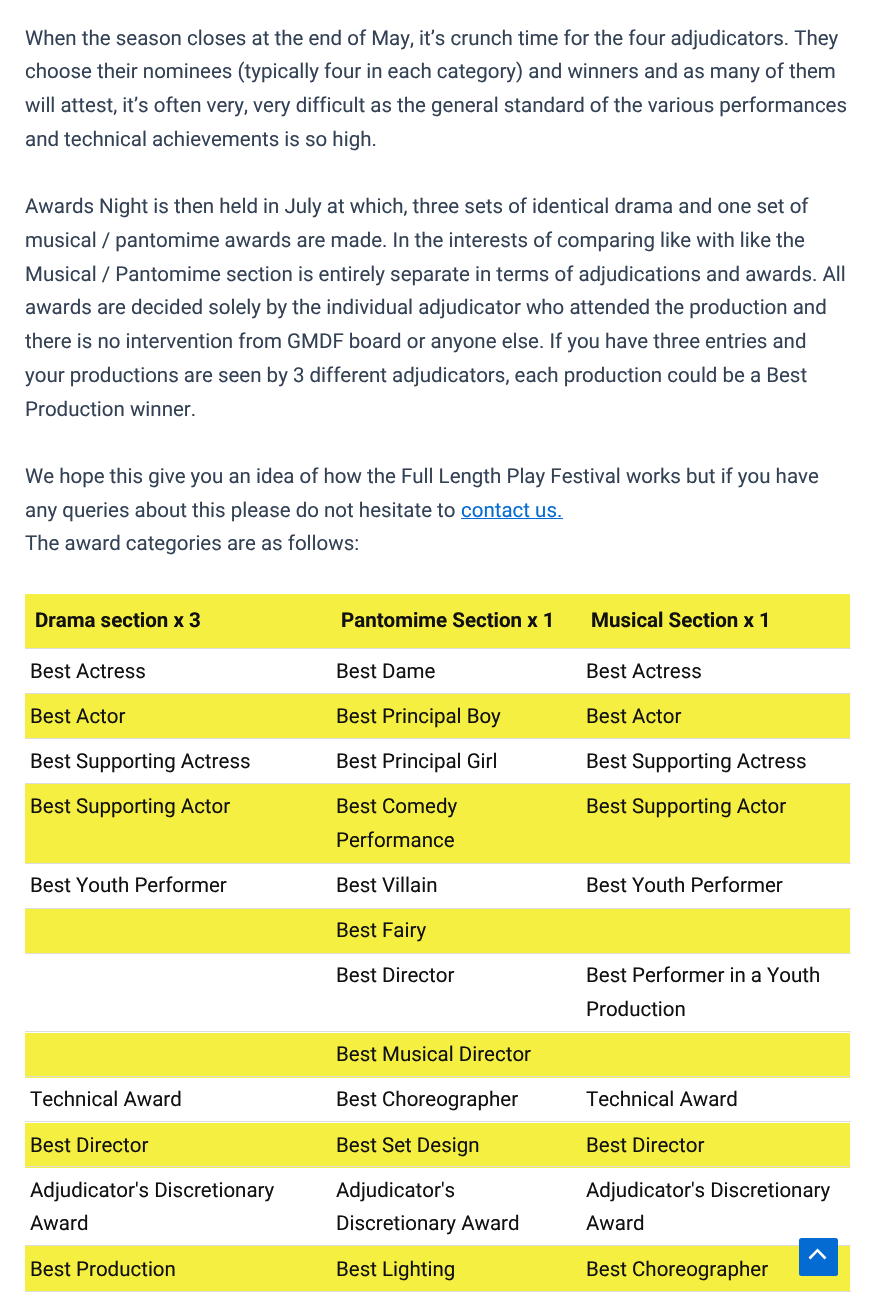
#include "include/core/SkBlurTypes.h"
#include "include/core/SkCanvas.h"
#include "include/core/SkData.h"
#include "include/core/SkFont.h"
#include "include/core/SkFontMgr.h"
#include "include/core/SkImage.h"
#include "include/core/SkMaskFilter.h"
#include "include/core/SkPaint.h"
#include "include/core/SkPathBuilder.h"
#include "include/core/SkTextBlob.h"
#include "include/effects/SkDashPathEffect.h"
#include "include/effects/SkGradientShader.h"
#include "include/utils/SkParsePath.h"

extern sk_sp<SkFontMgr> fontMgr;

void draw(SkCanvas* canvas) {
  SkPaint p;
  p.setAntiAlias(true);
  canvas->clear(SK_ColorWHITE);
  p.setColor(SkColorSetRGB(4, 107, 210));
  canvas->drawRect(SkRect::MakeLTRB(461, 518, 563, 519), p);
  p.setColor(SkColorSetRGB(245, 239, 66));
  canvas->drawRect(SkRect::MakeLTRB(25, 594, 850, 648), p);
  p.setColor(SkColorSetRGB(221, 221, 221));
  canvas->drawRect(SkRect::MakeLTRB(25, 648, 851, 649), p);
  p.setColor(SkColorSetRGB(245, 239, 66));
  canvas->drawRect(SkRect::MakeLTRB(25, 694, 850, 738), p);
  p.setColor(SkColorSetRGB(221, 221, 221));
  canvas->drawRect(SkRect::MakeLTRB(25, 693, 851, 694), p);
  canvas->drawRect(SkRect::MakeLTRB(25, 738, 851, 739), p);
  p.setColor(SkColorSetRGB(245, 239, 66));
  canvas->drawRect(SkRect::MakeLTRB(25, 784, 850, 863), p);
  p.setColor(SkColorSetRGB(221, 221, 221));
  canvas->drawRect(SkRect::MakeLTRB(25, 783, 851, 784), p);
  canvas->drawRect(SkRect::MakeLTRB(25, 863, 851, 864), p);
  canvas->drawRect(SkRect::MakeLTRB(25, 908, 851, 909), p);
  p.setColor(SkColorSetRGB(245, 239, 66));
  canvas->drawRect(SkRect::MakeLTRB(25, 909, 850, 953), p);
  p.setColor(SkColorSetRGB(221, 221, 221));
  canvas->drawRect(SkRect::MakeLTRB(25, 953, 851, 954), p);
  canvas->drawRect(SkRect::MakeLTRB(25, 1031, 851, 1032), p);
  p.setColor(SkColorSetRGB(245, 239, 66));
  canvas->drawRect(SkRect::MakeLTRB(25, 1033, 850, 1078), p);
  p.setColor(SkColorSetRGB(221, 221, 221));
  canvas->drawRect(SkRect::MakeLTRB(25, 1076, 851, 1077), p);
  p.setColor(SkColorSetRGB(245, 239, 66));
  canvas->drawRect(SkRect::MakeLTRB(25, 1123, 850, 1168), p);
  p.setColor(SkColorSetRGB(221, 221, 221));
  canvas->drawRect(SkRect::MakeLTRB(25, 1121, 851, 1122), p);
  canvas->drawRect(SkRect::MakeLTRB(25, 1166, 851, 1167), p);
  p.setColor(SkColorSetRGB(245, 239, 66));
  canvas->drawRect(SkRect::MakeLTRB(25, 1246, 850, 1291), p);
  p.setColor(SkColorSetRGB(221, 221, 221));
  canvas->drawRect(SkRect::MakeLTRB(25, 1245, 851, 1246), p);
  canvas->drawRect(SkRect::MakeLTRB(25, 1291, 851, 1292), p);
  p.setColor(SkColorSetRGB(4, 107, 210));
  canvas->drawRoundRect(SkRect::MakeLTRB(799, 1238, 838, 1276), 2.5f, 2.5f, p);
  p.setColor(SK_ColorWHITE);
  canvas->drawPath(SkPathBuilder().moveTo(826.5f, 1257.5f).lineTo(817.5f, 1248.5f).lineTo(808.5f, 1257.5f).lineTo(810.5f, 1259.5f).lineTo(817.5f, 1252).lineTo(824.5f, 1259.5f).close().detach(), p);
  SkFont font1(fontMgr->matchFamilyStyle("Roboto", SkFontStyle::Normal()), 20.5f);
  font1.setSubpixel(true);
  p.setColor(SkColorSetRGB(51, 65, 85));
  canvas->drawString("When the season closes at the end of May, it’s crunch time for the four adjudicators. They", 25, 45, font1, p);
  canvas->drawString("choose their nominees (typically four in each category) and winners and as many of them", 25, 78, font1, p);
  canvas->drawString("will attest, it’s often very, very difficult as the general standard of the various performances", 25, 112, font1, p);
  canvas->drawString("and technical achievements is so high.", 25, 146, font1, p);
  canvas->drawString("Awards Night is then held in July at which, three sets of identical drama and one set of", 25, 213, font1, p);
  canvas->drawString("musical / pantomime awards are made. In the interests of comparing like with like the", 25, 247, font1, p);
  canvas->drawString("Musical / Pantomime section is entirely separate in terms of adjudications and awards. All", 25, 281, font1, p);
  canvas->drawString("awards are decided solely by the individual adjudicator who attended the production and", 25, 314, font1, p);
  canvas->drawString("there is no intervention from GMDF board or anyone else. If you have three entries and", 25, 348, font1, p);
  canvas->drawString("your productions are seen by 3 different adjudicators, each production could be a Best", 25, 382, font1, p);
  canvas->drawString("Production winner.", 25, 416, font1, p);
  canvas->drawString("We hope this give you an idea of how the Full Length Play Festival works but if you have", 25, 483, font1, p);
  canvas->drawString("any queries about this please do not hesitate to", 25, 517, font1, p);
  p.setColor(SkColorSetRGB(4, 107, 210));
  canvas->drawString("contact us.", 461, 517, font1, p);
  p.setColor(SkColorSetRGB(51, 65, 85));
  canvas->drawString("The award categories are as follows:", 25, 550, font1, p);
  SkFont font2(fontMgr->matchFamilyStyle("Roboto", SkFontStyle::Bold()), 20.5f);
  font2.setSubpixel(true);
  p.setColor(SkColorSetRGB(17, 17, 17));
  canvas->drawString("Drama section x 3", 35, 627, font2, p);
  canvas->drawString("Pantomime Section x 1", 341, 627, font2, p);
  canvas->drawString("Musical Section x 1", 591, 627, font2, p);
  canvas->drawString("Best Actress", 30, 678, font1, p);
  canvas->drawString("Best Dame", 336, 678, font1, p);
  canvas->drawString("Best Actress", 586, 678, font1, p);
  canvas->drawString("Best Actor", 30, 723, font1, p);
  canvas->drawString("Best Principal Boy", 336, 723, font1, p);
  canvas->drawString("Best Actor", 586, 723, font1, p);
  canvas->drawString("Best Supporting Actress", 30, 768, font1, p);
  canvas->drawString("Best Principal Girl", 336, 768, font1, p);
  canvas->drawString("Best Supporting Actress", 586, 768, font1, p);
  canvas->drawString("Best Supporting Actor", 30, 813, font1, p);
  canvas->drawString("Best Comedy", 336, 813, font1, p);
  canvas->drawString("Performance", 336, 847, font1, p);
  canvas->drawString("Best Supporting Actor", 586, 813, font1, p);
  canvas->drawString("Best Youth Performer", 30, 892, font1, p);
  canvas->drawString("Best Villain", 336, 892, font1, p);
  canvas->drawString("Best Youth Performer", 586, 892, font1, p);
  canvas->drawString("Best Fairy", 336, 937, font1, p);
  canvas->drawString("Best Director", 336, 982, font1, p);
  canvas->drawString("Best Performer in a Youth", 586, 982, font1, p);
  canvas->drawString("Production", 586, 1016, font1, p);
  canvas->drawString("Best Musical Director", 336, 1061, font1, p);
  canvas->drawString("Technical Award", 30, 1106, font1, p);
  canvas->drawString("Best Choreographer", 336, 1106, font1, p);
  canvas->drawString("Technical Award", 586, 1106, font1, p);
  canvas->drawString("Best Director", 30, 1152, font1, p);
  canvas->drawString("Best Set Design", 336, 1152, font1, p);
  canvas->drawString("Best Director", 586, 1152, font1, p);
  canvas->drawString("Adjudicator's Discretionary", 30, 1197, font1, p);
  canvas->drawString("Award", 30, 1230, font1, p);
  canvas->drawString("Adjudicator's", 336, 1197, font1, p);
  canvas->drawString("Discretionary Award", 336, 1230, font1, p);
  canvas->drawString("Adjudicator's Discretionary", 586, 1197, font1, p);
  canvas->drawString("Award", 586, 1230, font1, p);
  canvas->drawString("Best Production", 30, 1276, font1, p);
  canvas->drawString("Best Lighting", 336, 1276, font1, p);
  canvas->drawString("Best Choreographer", 586, 1276, font1, p);
}
